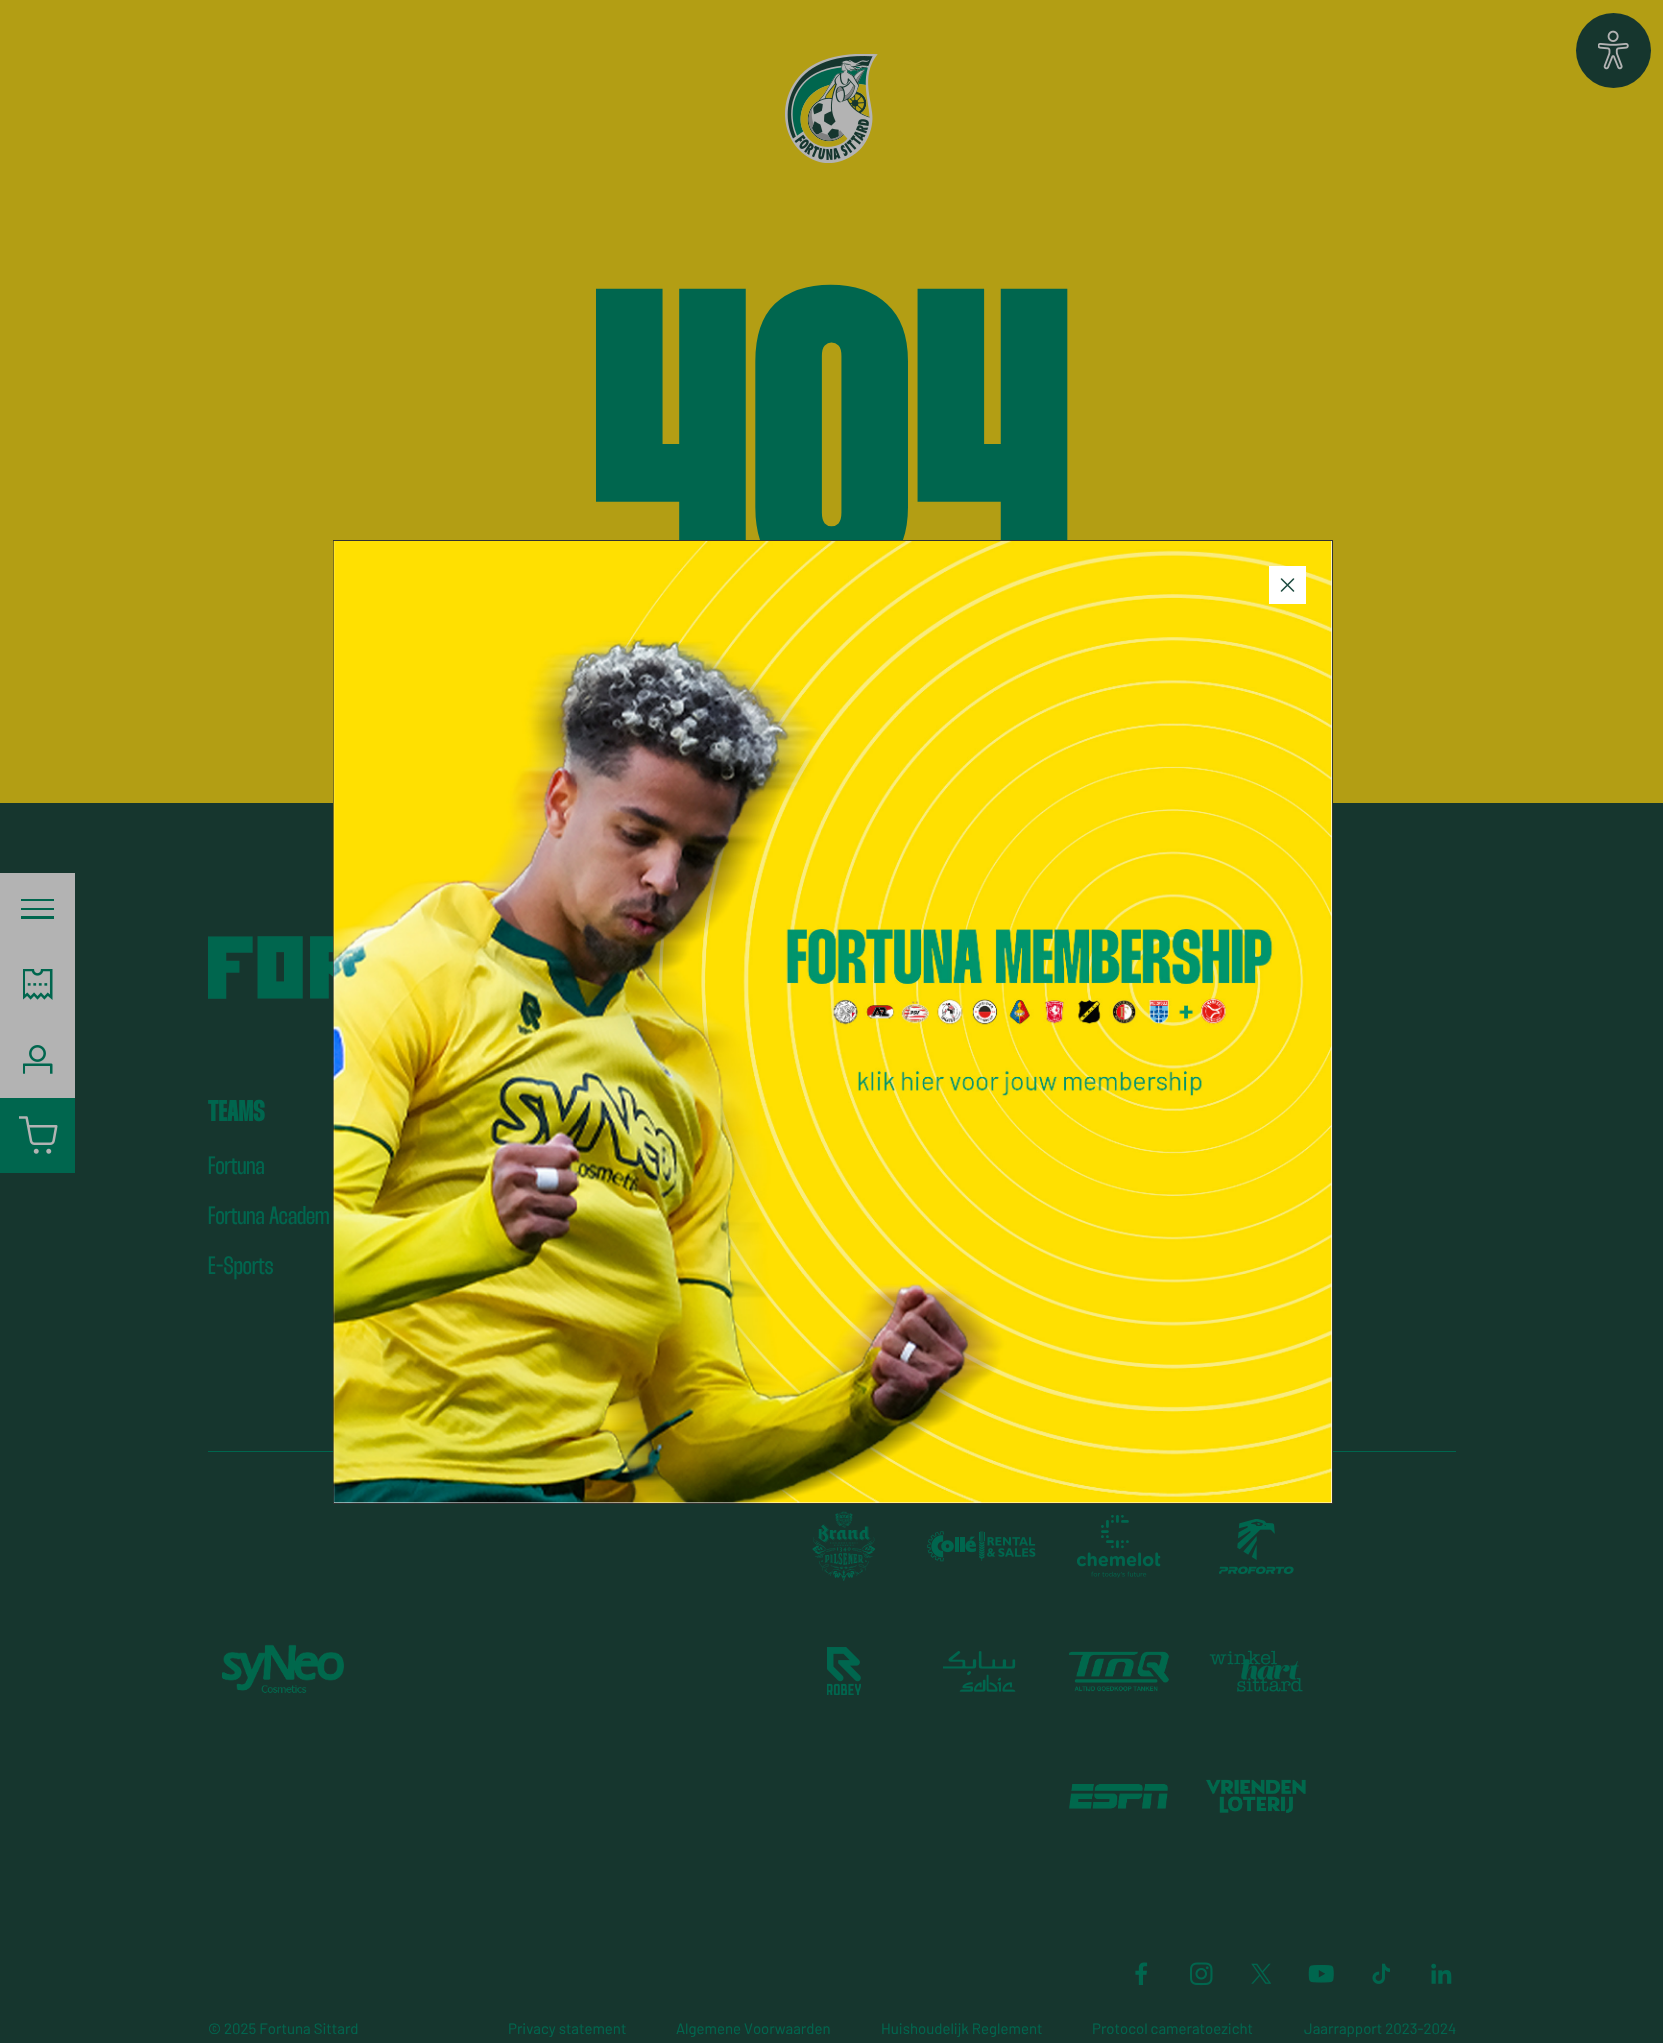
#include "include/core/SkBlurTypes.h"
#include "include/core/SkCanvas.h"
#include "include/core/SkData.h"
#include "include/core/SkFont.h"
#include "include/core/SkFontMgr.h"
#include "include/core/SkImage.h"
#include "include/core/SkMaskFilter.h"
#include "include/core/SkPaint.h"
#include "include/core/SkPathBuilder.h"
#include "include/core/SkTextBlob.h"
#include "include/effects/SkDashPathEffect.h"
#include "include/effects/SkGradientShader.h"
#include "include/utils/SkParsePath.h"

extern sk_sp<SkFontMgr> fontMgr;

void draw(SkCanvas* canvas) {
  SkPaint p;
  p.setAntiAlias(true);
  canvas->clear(SkColorSetRGB(179, 158, 20));
  canvas->drawImageRect(SkImages::DeferredFromEncodedData(SkData::MakeFromFileName("images/1.png")), SkRect::MakeLTRB(785, 54, 878, 163), SkSamplingOptions());
  p.setColor(SkColorSetRGB(22, 54, 46));
  canvas->drawCircle(1613.5f, 50.5f, 37.5f, p);
  canvas->drawImageRect(SkImages::DeferredFromEncodedData(SkData::MakeFromFileName("images/2.png")), SkRect::MakeLTRB(1598, 30, 1629, 70), SkSamplingOptions());
  canvas->drawRect(SkRect::MakeLTRB(0, 803, 1663, 2043), p);
  p.setColor(SkColorSetRGB(179, 179, 179));
  canvas->drawRect(SkRect::MakeLTRB(0, 873, 75, 1098), p);
  p.setColor(SkColorSetRGB(0, 102, 78));
  canvas->drawRect(SkRect::MakeLTRB(21, 899, 54, 901), p);
  canvas->drawRect(SkRect::MakeLTRB(21, 908, 54, 910), p);
  canvas->drawRect(SkRect::MakeLTRB(21, 916, 54, 919), p);
  canvas->drawImageRect(SkImages::DeferredFromEncodedData(SkData::MakeFromFileName("images/3.png")), SkRect::MakeLTRB(23, 969, 53, 1000), SkSamplingOptions());
  canvas->drawImageRect(SkImages::DeferredFromEncodedData(SkData::MakeFromFileName("images/4.png")), SkRect::MakeLTRB(23, 1045, 53, 1074), SkSamplingOptions());
  canvas->drawRect(SkRect::MakeLTRB(0, 1098, 75, 1173), p);
  canvas->drawImageRect(SkImages::DeferredFromEncodedData(SkData::MakeFromFileName("images/5.png")), SkRect::MakeLTRB(19, 1116, 58, 1154), SkSamplingOptions());
  canvas->drawImageRect(SkImages::DeferredFromEncodedData(SkData::MakeFromFileName("images/7.png")), SkRect::MakeLTRB(208, 936, 333, 999), SkSamplingOptions());
  canvas->drawRect(SkRect::MakeLTRB(208, 1451, 1456, 1452), p);
  canvas->drawImageRect(SkImages::DeferredFromEncodedData(SkData::MakeFromFileName("images/8.png")), SkRect::MakeLTRB(222, 1644, 344, 1693), SkSamplingOptions());
  canvas->drawImageRect(SkImages::DeferredFromEncodedData(SkData::MakeFromFileName("images/9.png")), SkRect::MakeLTRB(812, 1511, 876, 1581), SkSamplingOptions());
  canvas->drawImageRect(SkImages::DeferredFromEncodedData(SkData::MakeFromFileName("images/10.png")), SkRect::MakeLTRB(927, 1531, 1036, 1562), SkSamplingOptions());
  canvas->drawImageRect(SkImages::DeferredFromEncodedData(SkData::MakeFromFileName("images/11.png")), SkRect::MakeLTRB(1077, 1515, 1161, 1578), SkSamplingOptions());
  canvas->drawImageRect(SkImages::DeferredFromEncodedData(SkData::MakeFromFileName("images/12.png")), SkRect::MakeLTRB(1219, 1519, 1294, 1574), SkSamplingOptions());
  canvas->drawImageRect(SkImages::DeferredFromEncodedData(SkData::MakeFromFileName("images/13.png")), SkRect::MakeLTRB(827, 1647, 861, 1695), SkSamplingOptions());
  canvas->drawImageRect(SkImages::DeferredFromEncodedData(SkData::MakeFromFileName("images/14.png")), SkRect::MakeLTRB(943, 1651, 1016, 1692), SkSamplingOptions());
  canvas->drawImageRect(SkImages::DeferredFromEncodedData(SkData::MakeFromFileName("images/15.png")), SkRect::MakeLTRB(1069, 1651, 1169, 1692), SkSamplingOptions());
  canvas->drawImageRect(SkImages::DeferredFromEncodedData(SkData::MakeFromFileName("images/16.png")), SkRect::MakeLTRB(1209, 1650, 1303, 1692), SkSamplingOptions());
  canvas->drawImageRect(SkImages::DeferredFromEncodedData(SkData::MakeFromFileName("images/17.png")), SkRect::MakeLTRB(1069, 1784, 1168, 1809), SkSamplingOptions());
  canvas->drawImageRect(SkImages::DeferredFromEncodedData(SkData::MakeFromFileName("images/18.png")), SkRect::MakeLTRB(1206, 1779, 1306, 1813), SkSamplingOptions());
  canvas->drawImageRect(SkImages::DeferredFromEncodedData(SkData::MakeFromFileName("images/19.png")), SkRect::MakeLTRB(1135, 1962, 1148, 1985), SkSamplingOptions());
  canvas->drawImageRect(SkImages::DeferredFromEncodedData(SkData::MakeFromFileName("images/20.png")), SkRect::MakeLTRB(1190, 1962, 1213, 1986), SkSamplingOptions());
  canvas->drawImageRect(SkImages::DeferredFromEncodedData(SkData::MakeFromFileName("images/21.png")), SkRect::MakeLTRB(1251, 1963, 1271, 1984), SkSamplingOptions());
  canvas->drawImageRect(SkImages::DeferredFromEncodedData(SkData::MakeFromFileName("images/22.png")), SkRect::MakeLTRB(1308, 1965, 1334, 1983), SkSamplingOptions());
  canvas->drawImageRect(SkImages::DeferredFromEncodedData(SkData::MakeFromFileName("images/23.png")), SkRect::MakeLTRB(1372, 1963, 1390, 1984), SkSamplingOptions());
  canvas->drawImageRect(SkImages::DeferredFromEncodedData(SkData::MakeFromFileName("images/24.png")), SkRect::MakeLTRB(1431, 1963, 1452, 1984), SkSamplingOptions());
  SkFont font1(fontMgr->matchFamilyStyle("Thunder", SkFontStyle(800, SkFontStyle::kNormal_Width, SkFontStyle::kUpright_Slant)), 416);
  font1.setSubpixel(true);
  canvas->drawString("404", 591, 580, font1, p);
  p.setColor(SK_ColorWHITE);
  canvas->drawRect(SkRect::MakeLTRB(333.5f, 540.5f, 1332.5f, 1503.5f), p);
  p.setStyle(SkPaint::kStroke_Style);
  p.setStrokeWidth(1);
  p.setColor(SkColorSetRGB(51, 51, 50));
  canvas->drawRect(SkRect::MakeLTRB(333.5f, 540.5f, 1332.5f, 1503.5f), p);
  canvas->drawImageRect(SkImages::DeferredFromEncodedData(SkData::MakeFromFileName("images/6.png")), SkRect::MakeLTRB(333, 541, 1332, 1503), SkSamplingOptions());
  p.setStyle(SkPaint::kFill_Style);
  p.setColor(SK_ColorWHITE);
  canvas->drawRect(SkRect::MakeLTRB(1269, 566, 1306, 604), p);
  p.setStyle(SkPaint::kStroke_Style);
  p.setStrokeWidth(1.6f);
  p.setStrokeCap(SkPaint::kRound_Cap);
  p.setColor(SkColorSetRGB(31, 77, 66));
  canvas->drawPath(SkPathBuilder().moveTo(1281.5f, 579).lineTo(1293.5f, 591).moveTo(1281.5f, 591).lineTo(1293.5f, 579).detach(), p);
  SkFont font2(fontMgr->matchFamilyStyle("Thunder", SkFontStyle::Bold()), 30);
  font2.setSubpixel(true);
  p.setStyle(SkPaint::kFill_Style);
  p.setColor(SkColorSetRGB(0, 102, 78));
  canvas->drawString("TEAMS", 208, 1121, font2, p);
  SkFont font3(fontMgr->matchFamilyStyle("Thunder", SkFontStyle::Normal()), 25);
  font3.setSubpixel(true);
  canvas->drawString("Fortuna", 208, 1174, font3, p);
  canvas->drawString("Fortuna Academ", 208, 1224, font3, p);
  canvas->drawString("E-Sports", 208, 1274, font3, p);
  SkFont font4(fontMgr->matchFamilyStyle("Barlow", SkFontStyle::Normal()), 15);
  font4.setSubpixel(true);
  canvas->drawString("© 2025 Fortuna Sittard", 208, 2034, font4, p);
  canvas->drawString("Privacy statement", 508, 2034, font4, p);
  canvas->drawString("Algemene Voorwaarden", 676, 2034, font4, p);
  canvas->drawString("Huishoudelijk Reglement", 881, 2034, font4, p);
  canvas->drawString("Protocol cameratoezicht", 1092, 2034, font4, p);
  canvas->drawString("Jaarrapport 2023-2024", 1304, 2034, font4, p);
}
